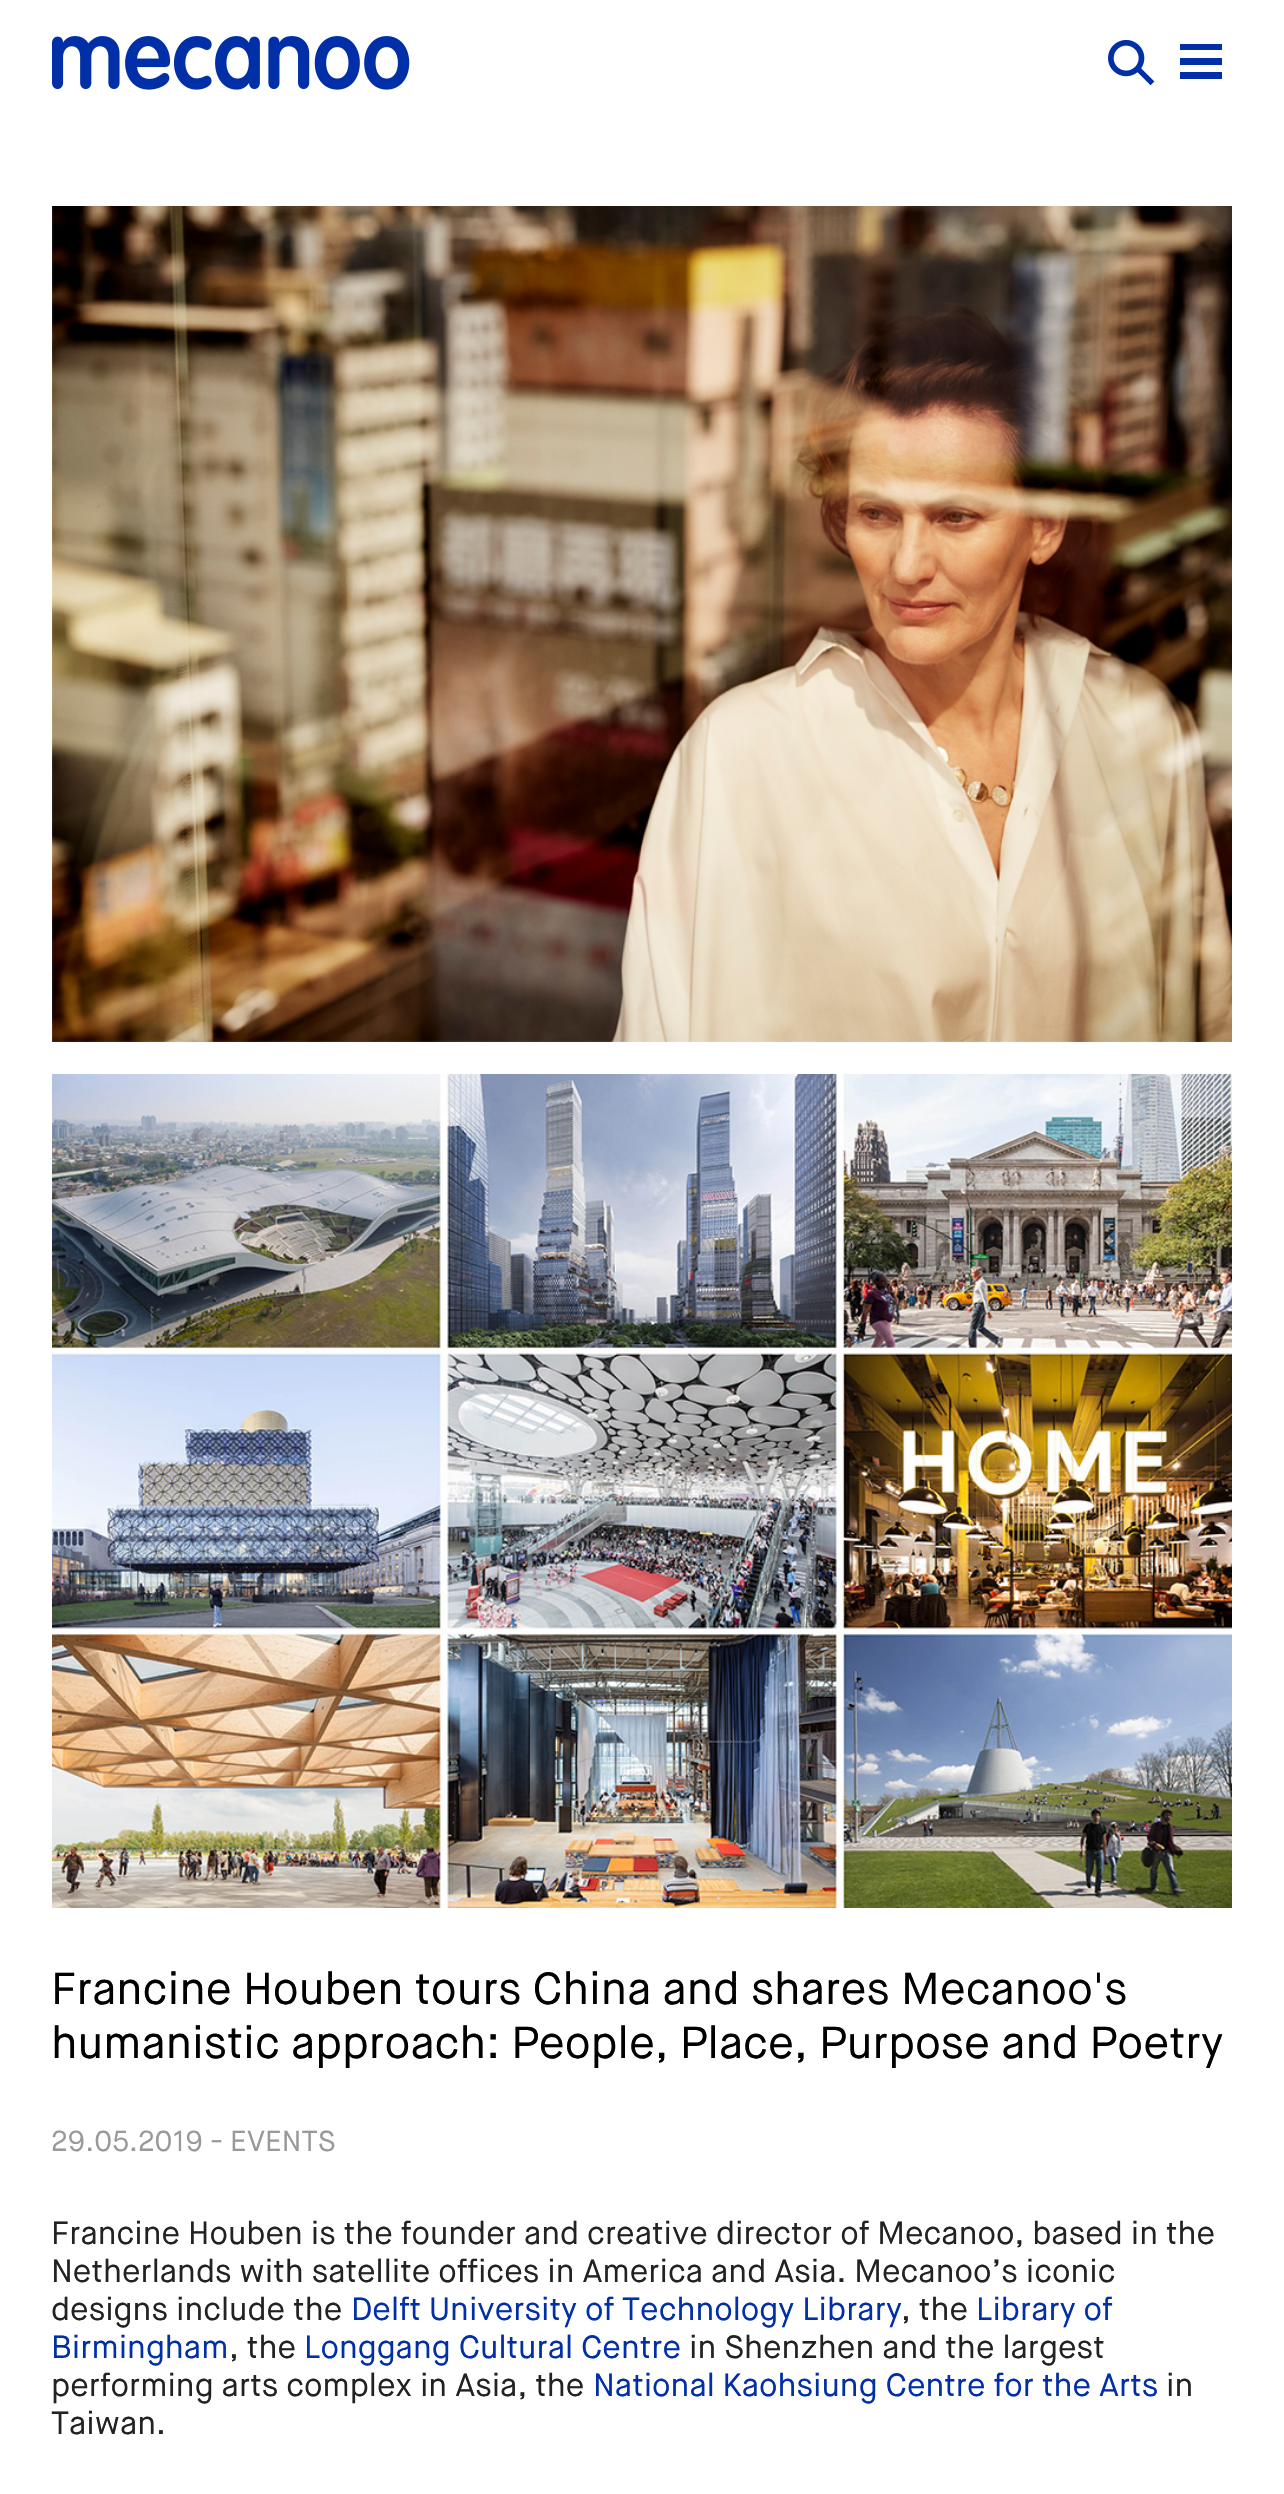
#include "include/core/SkBlurTypes.h"
#include "include/core/SkCanvas.h"
#include "include/core/SkData.h"
#include "include/core/SkFont.h"
#include "include/core/SkFontMgr.h"
#include "include/core/SkImage.h"
#include "include/core/SkMaskFilter.h"
#include "include/core/SkPaint.h"
#include "include/core/SkPathBuilder.h"
#include "include/core/SkTextBlob.h"
#include "include/effects/SkDashPathEffect.h"
#include "include/effects/SkGradientShader.h"
#include "include/utils/SkParsePath.h"

extern sk_sp<SkFontMgr> fontMgr;

void draw(SkCanvas* canvas) {
  SkPaint p;
  p.setAntiAlias(true);
  canvas->clear(SK_ColorWHITE);
  canvas->drawImageRect(SkImages::DeferredFromEncodedData(SkData::MakeFromFileName("images/1.png")), SkRect::MakeLTRB(52, 36, 410, 90), SkSamplingOptions());
  canvas->drawImageRect(SkImages::DeferredFromEncodedData(SkData::MakeFromFileName("images/2.png")), SkRect::MakeLTRB(1108, 39, 1155, 86), SkSamplingOptions());
  p.setColor(SkColorSetRGB(0, 47, 167));
  canvas->drawPath(SkPathBuilder().moveTo(1180, 44).lineTo(1222, 44).lineTo(1222, 50).lineTo(1180, 50).close().moveTo(1180, 79).lineTo(1222, 79).lineTo(1222, 72).lineTo(1180, 72).close().moveTo(1180, 65).lineTo(1222, 65).lineTo(1222, 58).lineTo(1180, 58).close().detach(), p);
  canvas->drawImageRect(SkImages::DeferredFromEncodedData(SkData::MakeFromFileName("images/3.png")), SkRect::MakeLTRB(52, 206, 1232, 1042), SkSamplingOptions());
  canvas->drawImageRect(SkImages::DeferredFromEncodedData(SkData::MakeFromFileName("images/4.png")), SkRect::MakeLTRB(52, 1074, 1232, 1908), SkSamplingOptions());
  SkFont font1(fontMgr->matchFamilyStyle("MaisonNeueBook", SkFontStyle::Normal()), 44.8f);
  font1.setSubpixel(true);
  p.setColor(SK_ColorBLACK);
  canvas->drawString("Francine Houben tours China and shares Mecanoo's", 51, 2004, font1, p);
  canvas->drawString("humanistic approach: People, Place, Purpose and Poetry", 51, 2058, font1, p);
  SkFont font2(fontMgr->matchFamilyStyle("MaisonNeueBook", SkFontStyle::Normal()), 28.75f);
  font2.setSubpixel(true);
  p.setColor(SkColorSetRGB(153, 153, 153));
  canvas->drawString("29.05.2019 - EVENTS", 51, 2151, font2, p);
  SkFont font3(fontMgr->matchFamilyStyle("MaisonNeueBook", SkFontStyle::Normal()), 32);
  font3.setSubpixel(true);
  p.setColor(SkColorSetRGB(34, 34, 34));
  canvas->drawString("Francine Houben is the founder and creative director of Mecanoo, based in the", 51, 2244, font3, p);
  canvas->drawString("Netherlands with satellite offices in America and Asia. Mecanoo’s iconic", 51, 2282, font3, p);
  canvas->drawString("designs include the", 51, 2320, font3, p);
  p.setColor(SkColorSetRGB(0, 47, 167));
  canvas->drawString("Delft University of Technology Library", 351, 2320, font3, p);
  p.setColor(SkColorSetRGB(34, 34, 34));
  canvas->drawString(", the", 901, 2320, font3, p);
  p.setColor(SkColorSetRGB(0, 47, 167));
  canvas->drawString("Library of", 976, 2320, font3, p);
  canvas->drawString("Birmingham", 51, 2358, font3, p);
  p.setColor(SkColorSetRGB(34, 34, 34));
  canvas->drawString(", the", 229, 2358, font3, p);
  p.setColor(SkColorSetRGB(0, 47, 167));
  canvas->drawString("Longgang Cultural Centre", 304, 2358, font3, p);
  p.setColor(SkColorSetRGB(34, 34, 34));
  canvas->drawString("in Shenzhen and the largest", 689, 2358, font3, p);
  canvas->drawString("performing arts complex in Asia, the", 51, 2396, font3, p);
  p.setColor(SkColorSetRGB(0, 47, 167));
  canvas->drawString("National Kaohsiung Centre for the Arts", 593, 2396, font3, p);
  p.setColor(SkColorSetRGB(34, 34, 34));
  canvas->drawString("in", 1166, 2396, font3, p);
  canvas->drawString("Taiwan.", 51, 2434, font3, p);
}
